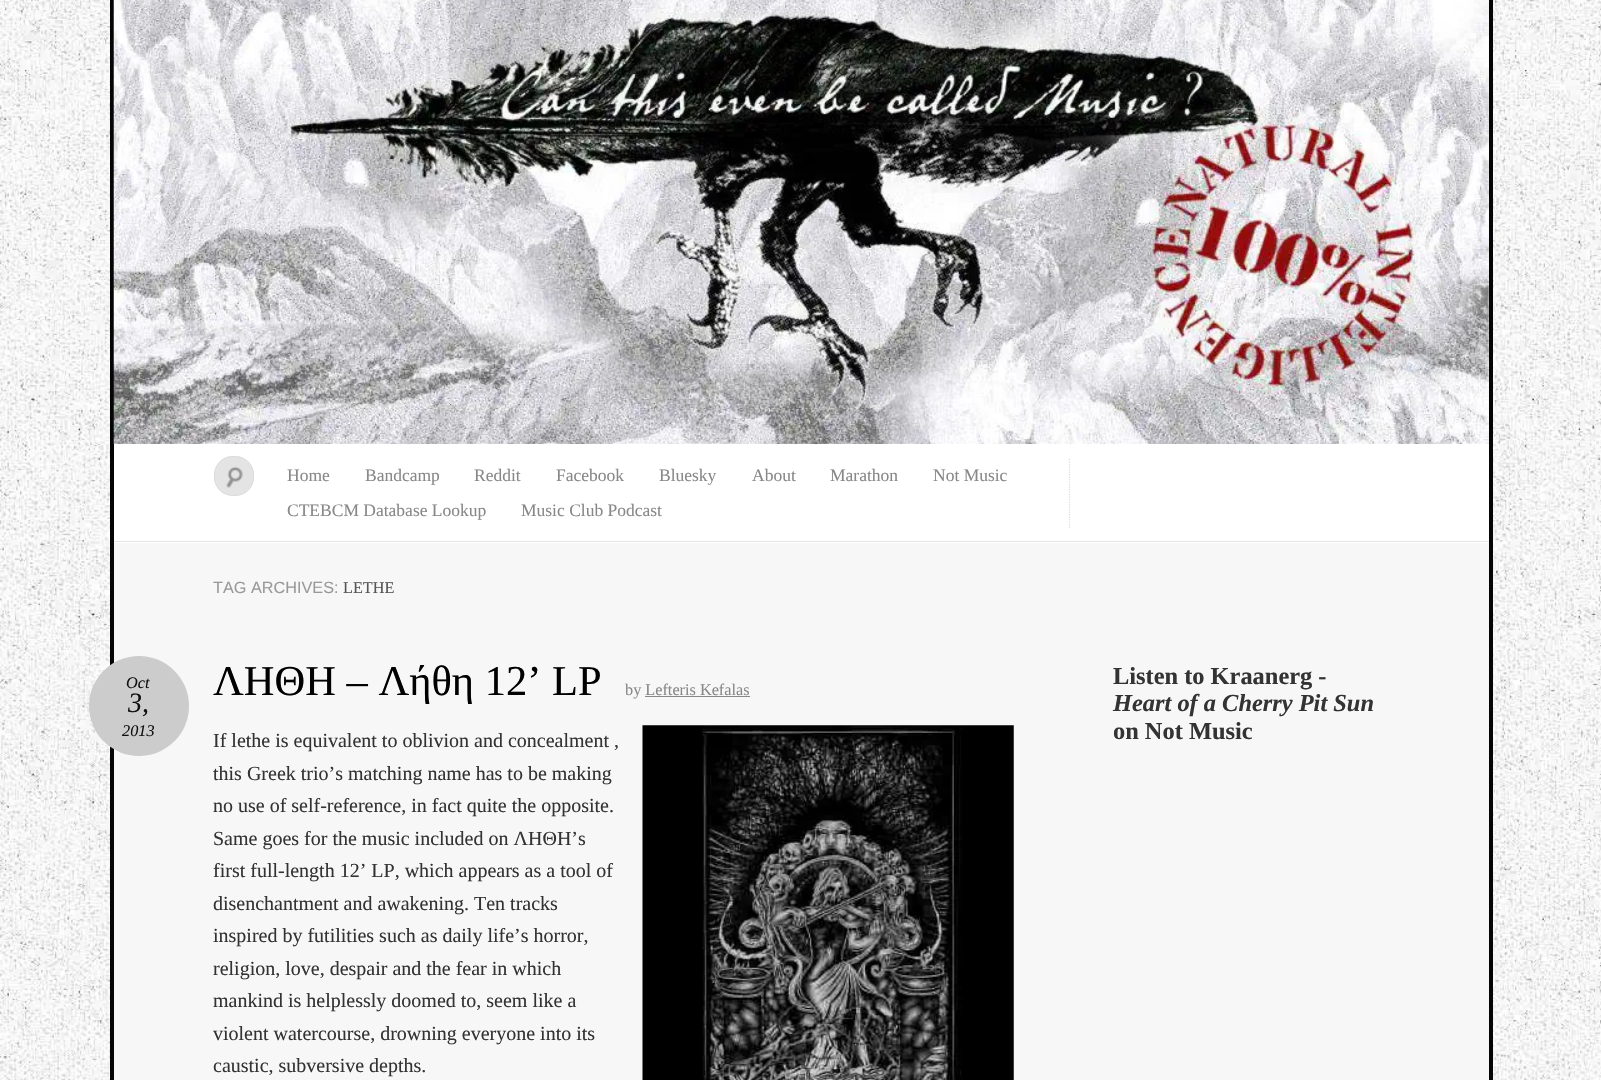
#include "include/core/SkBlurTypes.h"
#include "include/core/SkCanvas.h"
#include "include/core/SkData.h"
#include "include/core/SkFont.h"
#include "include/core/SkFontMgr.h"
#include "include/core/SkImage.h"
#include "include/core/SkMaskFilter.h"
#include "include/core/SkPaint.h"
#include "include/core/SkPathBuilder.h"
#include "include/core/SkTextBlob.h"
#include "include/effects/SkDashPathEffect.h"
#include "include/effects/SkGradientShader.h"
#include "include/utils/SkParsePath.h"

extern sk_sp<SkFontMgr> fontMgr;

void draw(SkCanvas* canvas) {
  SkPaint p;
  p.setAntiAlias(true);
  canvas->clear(SK_ColorWHITE);
  canvas->drawImageRect(SkImages::DeferredFromEncodedData(SkData::MakeFromFileName("images/1.png")), SkRect::MakeLTRB(0, 0, 1601, 1080), SkSamplingOptions());
  p.setColor(SkColorSetRGB(247, 247, 247));
  canvas->drawRect(SkRect::MakeLTRB(112, -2, 1491, 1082), p);
  p.setStyle(SkPaint::kStroke_Style);
  p.setStrokeWidth(4);
  p.setColor(SkColorSetRGB(5, 5, 5));
  canvas->drawRect(SkRect::MakeLTRB(112, -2, 1491, 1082), p);
  canvas->drawImageRect(SkImages::DeferredFromEncodedData(SkData::MakeFromFileName("images/2.png")), SkRect::MakeLTRB(113, 0, 1489, 444), SkSamplingOptions());
  p.setStyle(SkPaint::kFill_Style);
  p.setColor(SK_ColorWHITE);
  canvas->drawRect(SkRect::MakeLTRB(114, 444, 1489, 543), p);
  p.setColor(SkColorSetRGB(228, 228, 227));
  canvas->drawRect(SkRect::MakeLTRB(114, 541, 1489, 542), p);
  p.setColor(SkColorSetRGB(228, 228, 228));
  canvas->drawRoundRect(SkRect::MakeLTRB(214, 456, 254, 496), 19, 19, p);
  canvas->drawImageRect(SkImages::DeferredFromEncodedData(SkData::MakeFromFileName("images/3.png")), SkRect::MakeLTRB(226, 466, 243, 488), SkSamplingOptions());
  p.setStyle(SkPaint::kStroke_Style);
  p.setStrokeWidth(1);
  p.setColor(SkColorSetRGB(221, 221, 221));
  canvas->drawRoundRect(SkRect::MakeLTRB(214.5f, 456.5f, 253.5f, 495.5f), 18.5f, 18.5f, p);
  p.setStrokeWidth(1.2f);
  p.setPathEffect(SkDashPathEffect::Make({{1.25f, 1.25f}}, 0));
  canvas->drawPath(SkPathBuilder().moveTo(1069.5f, 459).lineTo(1069.5f, 529).detach(), p);
  p.setPathEffect(nullptr);
  p.setStyle(SkPaint::kFill_Style);
  p.setColor(SkColorSetRGB(204, 204, 204));
  canvas->drawCircle(139, 706, 50, p);
  p.setColor(SkColorSetRGB(136, 136, 136));
  canvas->drawRect(SkRect::MakeLTRB(645, 696, 750, 697), p);
  canvas->drawImageRect(SkImages::DeferredFromEncodedData(SkData::MakeFromFileName("images/4.png")), SkRect::MakeLTRB(642, 725, 1014, 1080), SkSamplingOptions());
  SkFont font1(fontMgr->matchFamilyStyle("Liberation Serif", SkFontStyle::Normal()), 17.5f);
  font1.setSubpixel(true);
  canvas->drawString("Home", 287, 481, font1, p);
  canvas->drawString("Bandcamp", 365, 481, font1, p);
  canvas->drawString("Reddit", 474, 481, font1, p);
  canvas->drawString("Facebook", 556, 481, font1, p);
  canvas->drawString("Bluesky", 659, 481, font1, p);
  canvas->drawString("About", 752, 481, font1, p);
  canvas->drawString("Marathon", 830, 481, font1, p);
  canvas->drawString("Not Music", 933, 481, font1, p);
  canvas->drawString("CTEBCM Database Lookup", 287, 516, font1, p);
  canvas->drawString("Music Club Podcast", 521, 516, font1, p);
  SkFont font2(fontMgr->matchFamilyStyle("Liberation Sans", SkFontStyle::Normal()), 16.25f);
  font2.setSubpixel(true);
  p.setColor(SkColorSetRGB(153, 153, 153));
  canvas->drawString("TAG ARCHIVES:", 213, 593, font2, p);
  SkFont font3(fontMgr->matchFamilyStyle("Liberation Serif", SkFontStyle::Normal()), 16.25f);
  font3.setSubpixel(true);
  p.setColor(SkColorSetRGB(85, 85, 85));
  canvas->drawString("LETHE", 343, 593, font3, p);
  SkFont font4(fontMgr->matchFamilyStyle("Liberation Serif", SkFontStyle::Normal()), 42.5f);
  font4.setSubpixel(true);
  p.setColor(SK_ColorBLACK);
  canvas->drawString("ΛΗΘΗ – Λήθη 12’ LP", 213, 695, font4, p);
  SkFont font5(fontMgr->matchFamilyStyle("Liberation Serif", SkFontStyle::Italic()), 16.25f);
  font5.setSubpixel(true);
  p.setColor(SkColorSetRGB(17, 17, 17));
  canvas->drawString("Oct", 126, 688, font5, p);
  SkFont font6(fontMgr->matchFamilyStyle("Liberation Serif", SkFontStyle::Italic()), 28);
  font6.setSubpixel(true);
  canvas->drawString("3,", 128, 712, font6, p);
  canvas->drawString("2013", 122, 736, font5, p);
  p.setColor(SkColorSetRGB(136, 136, 136));
  canvas->drawString("by Lefteris Kefalas", 625, 695, font3, p);
  SkFont font7(fontMgr->matchFamilyStyle("Liberation Serif", SkFontStyle::Normal()), 20);
  font7.setSubpixel(true);
  p.setColor(SkColorSetRGB(51, 51, 51));
  canvas->drawString("If lethe is equivalent to oblivion and concealment ,", 213, 747, font7, p);
  canvas->drawString("this Greek trio’s matching name has to be making", 213, 780, font7, p);
  canvas->drawString("no use of self-reference, in fact quite the opposite.", 213, 812, font7, p);
  canvas->drawString("Same goes for the music included on ΛΗΘΗ’s", 213, 845, font7, p);
  canvas->drawString("first full-length 12’ LP, which appears as a tool of", 213, 877, font7, p);
  canvas->drawString("disenchantment and awakening. Ten tracks", 213, 910, font7, p);
  canvas->drawString("inspired by futilities such as daily life’s horror,", 213, 942, font7, p);
  canvas->drawString("religion, love, despair and the fear in which", 213, 975, font7, p);
  canvas->drawString("mankind is helplessly doomed to, seem like a", 213, 1007, font7, p);
  canvas->drawString("violent watercourse, drowning everyone into its", 213, 1040, font7, p);
  canvas->drawString("caustic, subversive depths.", 213, 1072, font7, p);
  SkFont font8(fontMgr->matchFamilyStyle("Liberation Serif", SkFontStyle::Bold()), 24.4f);
  font8.setSubpixel(true);
  canvas->drawString("Listen to Kraanerg -", 1113, 684, font8, p);
  SkFont font9(fontMgr->matchFamilyStyle("Liberation Serif", SkFontStyle::BoldItalic()), 24.4f);
  font9.setSubpixel(true);
  canvas->drawString("Heart of a Cherry Pit Sun", 1113, 711, font9, p);
  canvas->drawString("on Not Music", 1113, 739, font8, p);
}
